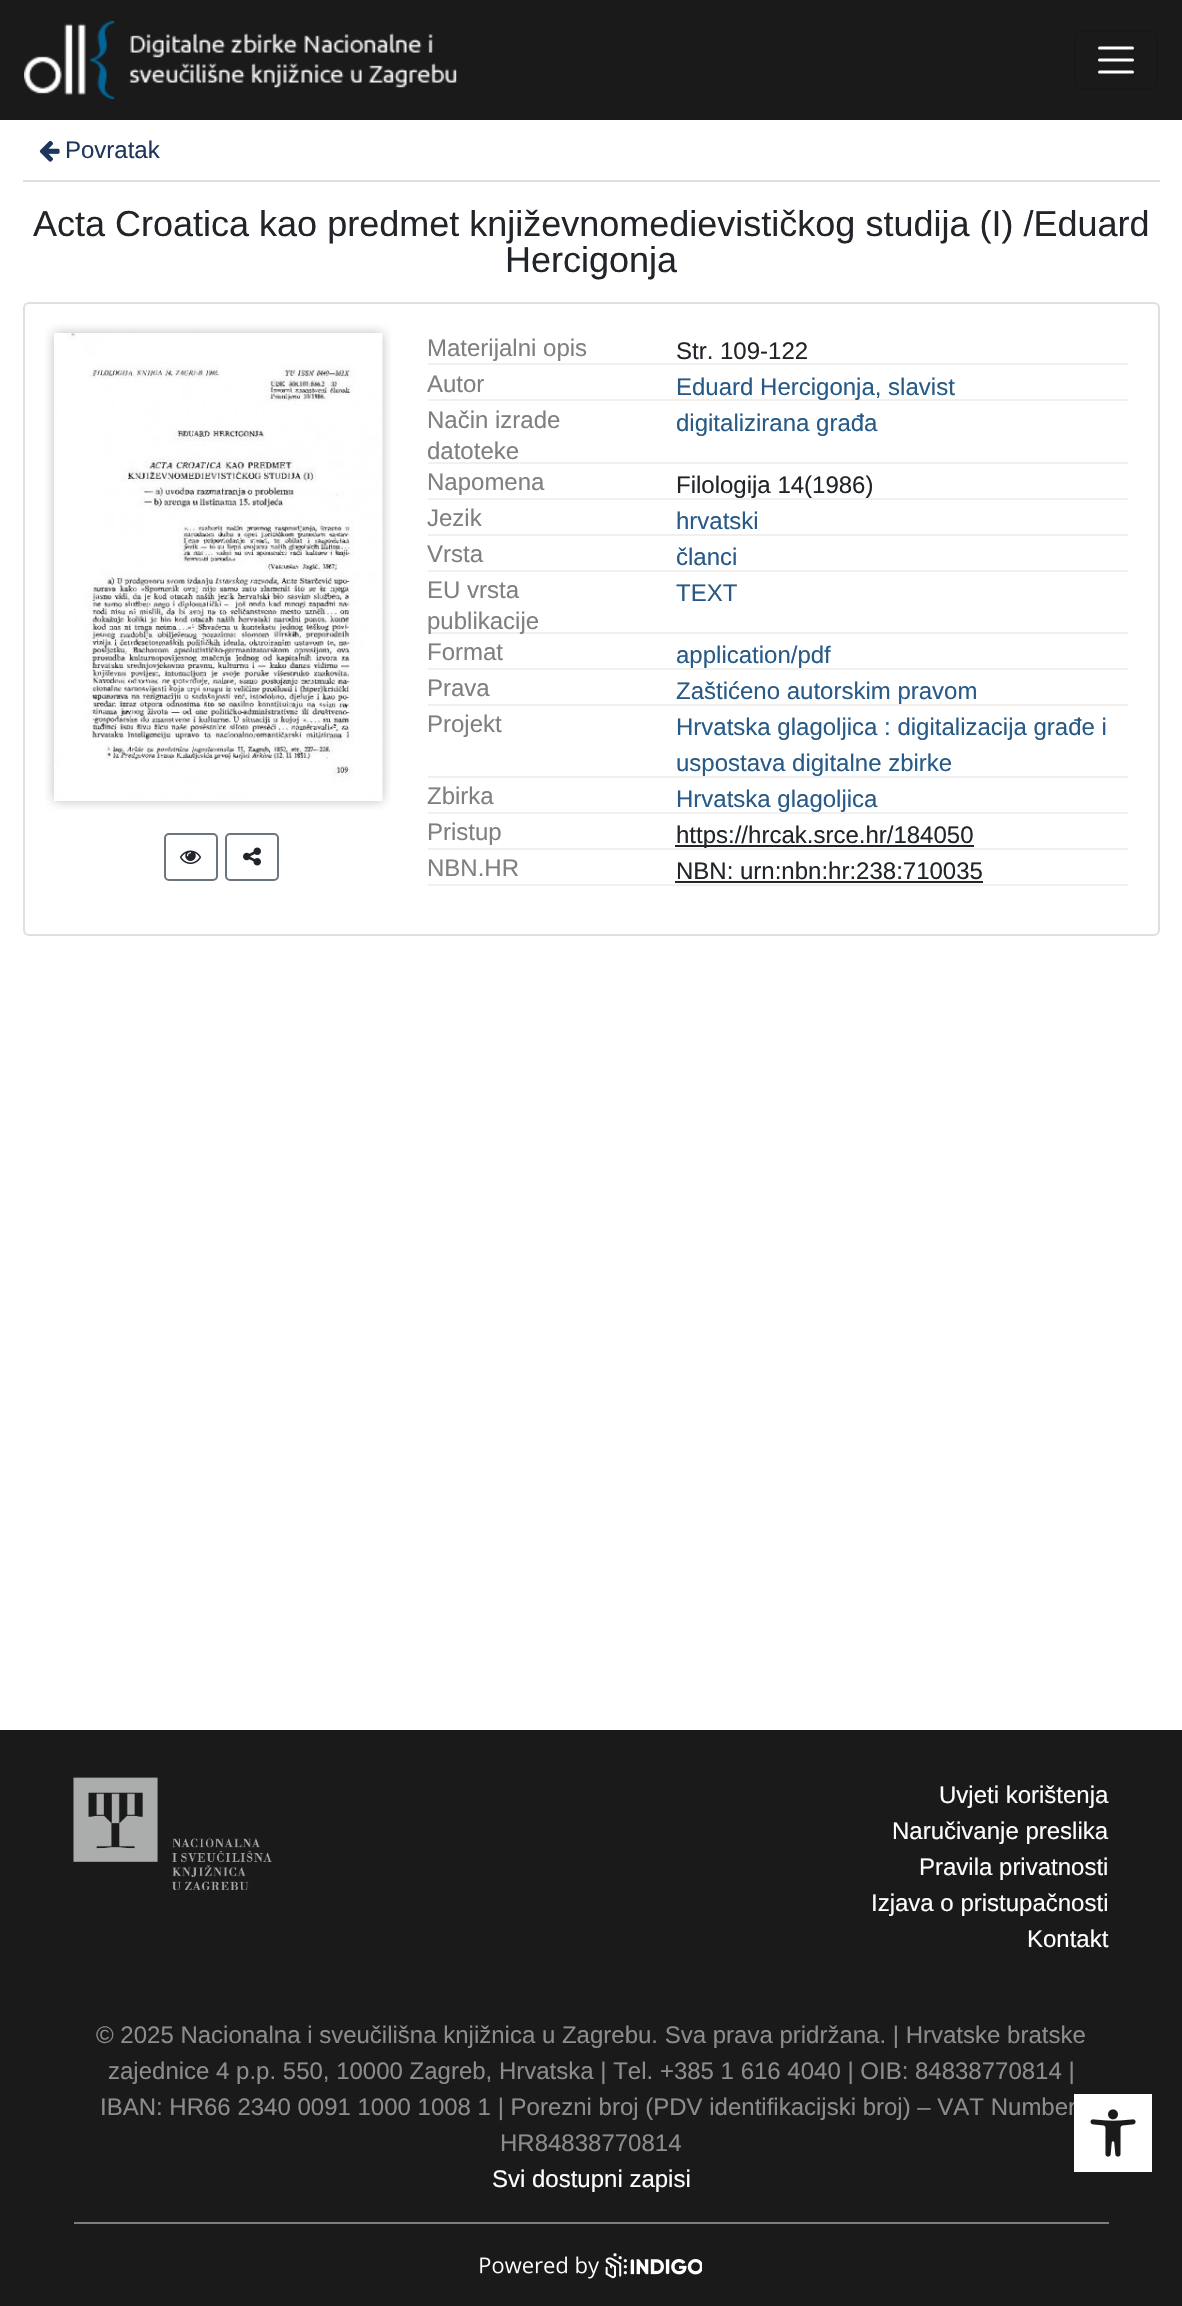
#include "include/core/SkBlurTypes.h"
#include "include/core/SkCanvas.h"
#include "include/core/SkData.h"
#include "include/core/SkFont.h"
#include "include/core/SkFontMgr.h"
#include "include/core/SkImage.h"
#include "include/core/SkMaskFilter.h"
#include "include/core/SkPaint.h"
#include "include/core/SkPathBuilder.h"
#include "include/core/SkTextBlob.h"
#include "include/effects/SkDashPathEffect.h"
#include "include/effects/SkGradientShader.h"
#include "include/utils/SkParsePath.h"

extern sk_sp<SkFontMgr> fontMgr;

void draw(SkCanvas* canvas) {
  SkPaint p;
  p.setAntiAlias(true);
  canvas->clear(SK_ColorWHITE);
  p.setColor(SkColorSetRGB(26, 26, 26));
  canvas->drawRect(SkRect::MakeLTRB(0, 0, 1182, 120), p);
  canvas->drawImageRect(SkImages::DeferredFromEncodedData(SkData::MakeFromFileName("images/1.png")), SkRect::MakeLTRB(24, 21, 457, 99), SkSamplingOptions());
  p.setStyle(SkPaint::kStroke_Style);
  p.setStrokeWidth(2);
  p.setColor(SkColorSetRGB(23, 23, 23));
  canvas->drawRoundRect(SkRect::MakeLTRB(1075, 31, 1157, 89), 5, 5, p);
  p.setStrokeWidth(3);
  p.setStrokeCap(SkPaint::kRound_Cap);
  p.setColor(SK_ColorWHITE);
  canvas->drawPath(SkPathBuilder().moveTo(1099.5f, 48).lineTo(1132.5f, 48).moveTo(1099.5f, 60).lineTo(1132.5f, 60).moveTo(1099.5f, 72).lineTo(1132.5f, 72).detach(), p);
  p.setStyle(SkPaint::kFill_Style);
  p.setColor(SkColorSetRGB(223, 223, 223));
  canvas->drawRect(SkRect::MakeLTRB(23, 180, 1160, 182), p);
  canvas->drawImageRect(SkImages::DeferredFromEncodedData(SkData::MakeFromFileName("images/2.png")), SkRect::MakeLTRB(39, 140, 60, 162), SkSamplingOptions());
  p.setStyle(SkPaint::kStroke_Style);
  p.setStrokeWidth(2);
  p.setStrokeCap(SkPaint::kButt_Cap);
  canvas->drawRoundRect(SkRect::MakeLTRB(24, 303, 1159, 935), 5, 5, p);
  canvas->drawImageRect(SkImages::DeferredFromEncodedData(SkData::MakeFromFileName("images/3.png")), SkRect::MakeLTRB(45, 324, 391, 810), SkSamplingOptions());
  p.setColor(SkColorSetRGB(108, 117, 125));
  canvas->drawRoundRect(SkRect::MakeLTRB(165, 834, 217, 880), 4, 4, p);
  canvas->drawImageRect(SkImages::DeferredFromEncodedData(SkData::MakeFromFileName("images/4.png")), SkRect::MakeLTRB(180, 850, 201, 864), SkSamplingOptions());
  canvas->drawRoundRect(SkRect::MakeLTRB(226, 834, 278, 880), 4, 4, p);
  canvas->drawImageRect(SkImages::DeferredFromEncodedData(SkData::MakeFromFileName("images/5.png")), SkRect::MakeLTRB(243, 847, 261, 866), SkSamplingOptions());
  p.setStyle(SkPaint::kFill_Style);
  p.setColor(SkColorSetRGB(240, 240, 240));
  canvas->drawRect(SkRect::MakeLTRB(428, 363, 1128, 365), p);
  canvas->drawRect(SkRect::MakeLTRB(428, 399, 1128, 401), p);
  canvas->drawRect(SkRect::MakeLTRB(428, 462, 1128, 464), p);
  canvas->drawRect(SkRect::MakeLTRB(428, 498, 1128, 500), p);
  canvas->drawRect(SkRect::MakeLTRB(428, 534, 1128, 536), p);
  canvas->drawRect(SkRect::MakeLTRB(428, 570, 1128, 572), p);
  canvas->drawRect(SkRect::MakeLTRB(428, 632, 1128, 634), p);
  canvas->drawRect(SkRect::MakeLTRB(428, 668, 1128, 670), p);
  canvas->drawRect(SkRect::MakeLTRB(428, 704, 1128, 706), p);
  canvas->drawRect(SkRect::MakeLTRB(428, 776, 1128, 778), p);
  canvas->drawRect(SkRect::MakeLTRB(428, 812, 1128, 814), p);
  p.setColor(SkColorSetRGB(33, 37, 41));
  canvas->drawRect(SkRect::MakeLTRB(675, 845, 974, 847), p);
  p.setColor(SkColorSetRGB(240, 240, 240));
  canvas->drawRect(SkRect::MakeLTRB(428, 848, 1128, 850), p);
  p.setColor(SkColorSetRGB(33, 37, 41));
  canvas->drawRect(SkRect::MakeLTRB(675, 881, 983, 883), p);
  p.setColor(SkColorSetRGB(240, 240, 240));
  canvas->drawRect(SkRect::MakeLTRB(428, 884, 1128, 886), p);
  p.setColor(SkColorSetRGB(26, 26, 26));
  canvas->drawRect(SkRect::MakeLTRB(0, 1730, 1182, 2306), p);
  canvas->drawImageRect(SkImages::DeferredFromEncodedData(SkData::MakeFromFileName("images/6.png")), SkRect::MakeLTRB(73, 1777, 272, 1890), SkSamplingOptions());
  p.setColor(SkColorSetRGB(125, 126, 127));
  canvas->drawRect(SkRect::MakeLTRB(74, 2222, 1109, 2224), p);
  canvas->drawImageRect(SkImages::DeferredFromEncodedData(SkData::MakeFromFileName("images/7.png")), SkRect::MakeLTRB(480, 2253, 702, 2279), SkSamplingOptions());
  SkFont font1(fontMgr->matchFamilyStyle("Liberation Sans", SkFontStyle::Normal()), 24);
  font1.setSubpixel(true);
  p.setColor(SkColorSetRGB(31, 54, 92));
  canvas->drawString("Povratak", 65, 158, font1, p);
  SkFont font2(fontMgr->matchFamilyStyle("Liberation Sans", SkFontStyle::Normal()), 36);
  font2.setSubpixel(true);
  p.setColor(SkColorSetRGB(33, 37, 41));
  canvas->drawString("Acta Croatica kao predmet književnomedievističkog studija (I) /Eduard", 33, 236, font2, p);
  canvas->drawString("Hercigonja", 505, 272, font2, p);
  p.setColor(SkColorSetRGB(128, 128, 128));
  canvas->drawString("Materijalni opis", 427, 356, font1, p);
  p.setColor(SkColorSetRGB(33, 37, 41));
  canvas->drawString("Str. 109-122", 676, 359, font1, p);
  p.setColor(SkColorSetRGB(128, 128, 128));
  canvas->drawString("Autor", 427, 392, font1, p);
  p.setColor(SkColorSetRGB(39, 90, 135));
  canvas->drawString("Eduard Hercigonja, slavist", 676, 395, font1, p);
  p.setColor(SkColorSetRGB(128, 128, 128));
  canvas->drawString("Način izrade", 427, 428, font1, p);
  canvas->drawString("datoteke", 427, 459, font1, p);
  p.setColor(SkColorSetRGB(39, 90, 135));
  canvas->drawString("digitalizirana građa", 676, 431, font1, p);
  p.setColor(SkColorSetRGB(128, 128, 128));
  canvas->drawString("Napomena", 427, 490, font1, p);
  p.setColor(SkColorSetRGB(33, 37, 41));
  canvas->drawString("Filologija 14(1986)", 676, 493, font1, p);
  p.setColor(SkColorSetRGB(128, 128, 128));
  canvas->drawString("Jezik", 427, 526, font1, p);
  p.setColor(SkColorSetRGB(39, 90, 135));
  canvas->drawString("hrvatski", 676, 529, font1, p);
  p.setColor(SkColorSetRGB(128, 128, 128));
  canvas->drawString("Vrsta", 427, 562, font1, p);
  p.setColor(SkColorSetRGB(39, 90, 135));
  canvas->drawString("članci", 676, 565, font1, p);
  p.setColor(SkColorSetRGB(128, 128, 128));
  canvas->drawString("EU vrsta", 427, 598, font1, p);
  canvas->drawString("publikacije", 427, 629, font1, p);
  p.setColor(SkColorSetRGB(39, 90, 135));
  canvas->drawString("TEXT", 676, 601, font1, p);
  p.setColor(SkColorSetRGB(128, 128, 128));
  canvas->drawString("Format", 427, 660, font1, p);
  p.setColor(SkColorSetRGB(39, 90, 135));
  canvas->drawString("application/pdf", 676, 663, font1, p);
  p.setColor(SkColorSetRGB(128, 128, 128));
  canvas->drawString("Prava", 427, 696, font1, p);
  p.setColor(SkColorSetRGB(39, 90, 135));
  canvas->drawString("Zaštićeno autorskim pravom", 676, 699, font1, p);
  p.setColor(SkColorSetRGB(128, 128, 128));
  canvas->drawString("Projekt", 427, 732, font1, p);
  p.setColor(SkColorSetRGB(39, 90, 135));
  canvas->drawString("Hrvatska glagoljica : digitalizacija građe i", 676, 735, font1, p);
  canvas->drawString("uspostava digitalne zbirke", 676, 771, font1, p);
  p.setColor(SkColorSetRGB(128, 128, 128));
  canvas->drawString("Zbirka", 427, 804, font1, p);
  p.setColor(SkColorSetRGB(39, 90, 135));
  canvas->drawString("Hrvatska glagoljica", 676, 807, font1, p);
  p.setColor(SkColorSetRGB(128, 128, 128));
  canvas->drawString("Pristup", 427, 840, font1, p);
  p.setColor(SkColorSetRGB(33, 37, 41));
  canvas->drawString("https://hrcak.srce.hr/184050", 676, 843, font1, p);
  p.setColor(SkColorSetRGB(128, 128, 128));
  canvas->drawString("NBN.HR", 427, 876, font1, p);
  p.setColor(SkColorSetRGB(33, 37, 41));
  canvas->drawString("NBN: urn:nbn:hr:238:710035", 676, 879, font1, p);
  p.setColor(SK_ColorWHITE);
  canvas->drawString("Uvjeti korištenja", 939, 1803, font1, p);
  canvas->drawString("Naručivanje preslika", 892, 1839, font1, p);
  canvas->drawString("Pravila privatnosti", 919, 1875, font1, p);
  canvas->drawString("Izjava o pristupačnosti", 871, 1911, font1, p);
  canvas->drawString("Kontakt", 1027, 1947, font1, p);
  p.setColor(SkColorSetRGB(139, 140, 141));
  canvas->drawString("© 2025 Nacionalna i sveučilišna knjižnica u Zagrebu. Sva prava pridržana. | Hrvatske bratske", 96, 2043, font1, p);
  canvas->drawString("zajednice 4 p.p. 550, 10000 Zagreb, Hrvatska | Tel. +385 1 616 4040 | OIB: 84838770814 |", 108, 2079, font1, p);
  canvas->drawString("IBAN: HR66 2340 0091 1000 1008 1 | Porezni broj (PDV identifikacijski broj) – VAT Number", 100, 2115, font1, p);
  canvas->drawString("HR84838770814", 500, 2151, font1, p);
  p.setColor(SK_ColorWHITE);
  canvas->drawString("Svi dostupni zapisi", 492, 2187, font1, p);
  canvas->drawRect(SkRect::MakeLTRB(1074, 2094, 1152, 2172), p);
  canvas->drawImageRect(SkImages::DeferredFromEncodedData(SkData::MakeFromFileName("images/8.png")), SkRect::MakeLTRB(1090, 2109, 1136, 2157), SkSamplingOptions());
}
